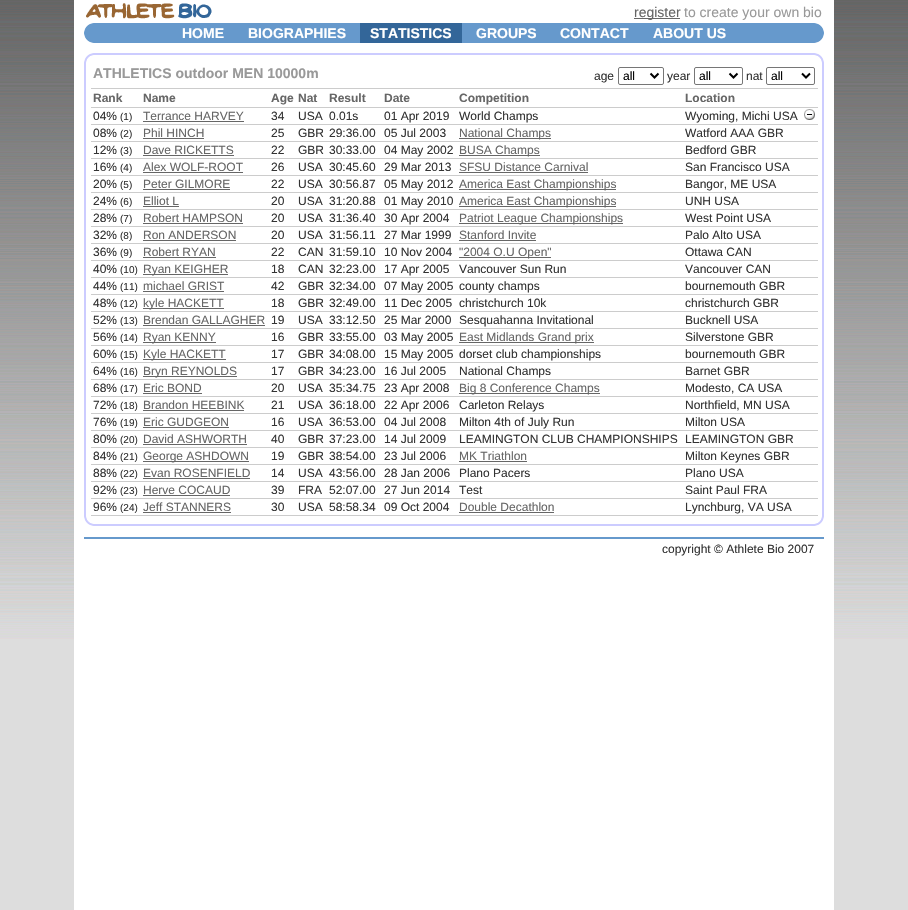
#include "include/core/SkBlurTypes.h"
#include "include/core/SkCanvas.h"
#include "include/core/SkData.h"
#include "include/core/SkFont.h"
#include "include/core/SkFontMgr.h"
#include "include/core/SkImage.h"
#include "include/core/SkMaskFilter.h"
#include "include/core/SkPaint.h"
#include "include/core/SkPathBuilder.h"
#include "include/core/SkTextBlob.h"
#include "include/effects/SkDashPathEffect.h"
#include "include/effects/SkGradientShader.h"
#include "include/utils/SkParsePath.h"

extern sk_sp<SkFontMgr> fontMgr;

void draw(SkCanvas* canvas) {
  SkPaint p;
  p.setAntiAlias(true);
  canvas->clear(SkColorSetRGB(221, 221, 221));
  canvas->drawImageRect(SkImages::DeferredFromEncodedData(SkData::MakeFromFileName("images/1.png")), SkRect::MakeLTRB(0, 0, 908, 639), SkSamplingOptions());
  p.setColor(SK_ColorWHITE);
  canvas->drawRect(SkRect::MakeLTRB(74, 0, 834, 910), p);
  canvas->drawImageRect(SkImages::DeferredFromEncodedData(SkData::MakeFromFileName("images/2.png")), SkRect::MakeLTRB(86, 3, 212, 19), SkSamplingOptions());
  p.setColor(SkColorSetRGB(102, 102, 102));
  canvas->drawRect(SkRect::MakeLTRB(634, 18, 680, 19), p);
  canvas->drawImageRect(SkImages::DeferredFromEncodedData(SkData::MakeFromFileName("images/3.png")), SkRect::MakeLTRB(84, 23, 824, 33), SkSamplingOptions());
  canvas->drawImageRect(SkImages::DeferredFromEncodedData(SkData::MakeFromFileName("images/4.png")), SkRect::MakeLTRB(84, 33, 824, 43), SkSamplingOptions());
  p.setColor(SkColorSetRGB(51, 102, 153));
  canvas->drawRect(SkRect::MakeLTRB(360, 23, 462, 43), p);
  canvas->drawImageRect(SkImages::DeferredFromEncodedData(SkData::MakeFromFileName("images/5.png")), SkRect::MakeLTRB(84, 53, 824, 63), SkSamplingOptions());
  p.setColor(SkColorSetRGB(204, 204, 255));
  canvas->drawRect(SkRect::MakeLTRB(822, 63, 824, 516), p);
  canvas->drawRect(SkRect::MakeLTRB(84, 63, 86, 516), p);
  p.setColor(SkColorSetRGB(204, 204, 204));
  canvas->drawRect(SkRect::MakeLTRB(91, 88, 818, 89), p);
  p.setStyle(SkPaint::kStroke_Style);
  p.setStrokeWidth(1);
  p.setColor(SkColorSetRGB(118, 118, 118));
  canvas->drawRoundRect(SkRect::MakeLTRB(618.5f, 67.5f, 663.5f, 84.5f), 1.5f, 1.5f, p);
  p.setStrokeWidth(2);
  p.setColor(SK_ColorBLACK);
  canvas->drawPath(SkPathBuilder().moveTo(650.5f, 73.5f).lineTo(654.5f, 77.5f).lineTo(658.5f, 73.5f).detach(), p);
  p.setStrokeWidth(1);
  p.setColor(SkColorSetRGB(118, 118, 118));
  canvas->drawRoundRect(SkRect::MakeLTRB(694.5f, 67.5f, 742.5f, 84.5f), 1.5f, 1.5f, p);
  p.setStrokeWidth(2);
  p.setColor(SK_ColorBLACK);
  canvas->drawPath(SkPathBuilder().moveTo(729.5f, 73.5f).lineTo(733.5f, 77.5f).lineTo(737.5f, 73.5f).detach(), p);
  p.setStrokeWidth(1);
  p.setColor(SkColorSetRGB(118, 118, 118));
  canvas->drawRoundRect(SkRect::MakeLTRB(766.5f, 67.5f, 814.5f, 84.5f), 1.5f, 1.5f, p);
  p.setStrokeWidth(2);
  p.setColor(SK_ColorBLACK);
  canvas->drawPath(SkPathBuilder().moveTo(802, 73.5f).lineTo(806, 77.5f).lineTo(810, 73.5f).detach(), p);
  p.setStyle(SkPaint::kFill_Style);
  p.setColor(SkColorSetRGB(204, 204, 204));
  canvas->drawRect(SkRect::MakeLTRB(91, 107, 818, 108), p);
  canvas->drawRect(SkRect::MakeLTRB(91, 124, 818, 125), p);
  canvas->drawImageRect(SkImages::DeferredFromEncodedData(SkData::MakeFromFileName("images/6.png")), SkRect::MakeLTRB(804, 109, 815, 120), SkSamplingOptions());
  p.setColor(SkColorSetRGB(102, 102, 102));
  canvas->drawRect(SkRect::MakeLTRB(143, 121, 244, 122), p);
  canvas->drawRect(SkRect::MakeLTRB(143, 138, 204, 139), p);
  canvas->drawRect(SkRect::MakeLTRB(459, 138, 551, 139), p);
  p.setColor(SkColorSetRGB(204, 204, 204));
  canvas->drawRect(SkRect::MakeLTRB(91, 141, 818, 142), p);
  p.setColor(SkColorSetRGB(102, 102, 102));
  canvas->drawRect(SkRect::MakeLTRB(143, 155, 234, 156), p);
  canvas->drawRect(SkRect::MakeLTRB(459, 155, 540, 156), p);
  p.setColor(SkColorSetRGB(204, 204, 204));
  canvas->drawRect(SkRect::MakeLTRB(91, 158, 818, 159), p);
  p.setColor(SkColorSetRGB(102, 102, 102));
  canvas->drawRect(SkRect::MakeLTRB(143, 172, 243, 173), p);
  canvas->drawRect(SkRect::MakeLTRB(459, 172, 588, 173), p);
  p.setColor(SkColorSetRGB(204, 204, 204));
  canvas->drawRect(SkRect::MakeLTRB(91, 175, 818, 176), p);
  p.setColor(SkColorSetRGB(102, 102, 102));
  canvas->drawRect(SkRect::MakeLTRB(143, 189, 230, 190), p);
  canvas->drawRect(SkRect::MakeLTRB(459, 189, 616, 190), p);
  p.setColor(SkColorSetRGB(204, 204, 204));
  canvas->drawRect(SkRect::MakeLTRB(91, 192, 818, 193), p);
  p.setColor(SkColorSetRGB(102, 102, 102));
  canvas->drawRect(SkRect::MakeLTRB(143, 206, 179, 207), p);
  canvas->drawRect(SkRect::MakeLTRB(459, 206, 616, 207), p);
  p.setColor(SkColorSetRGB(204, 204, 204));
  canvas->drawRect(SkRect::MakeLTRB(91, 209, 818, 210), p);
  p.setColor(SkColorSetRGB(102, 102, 102));
  canvas->drawRect(SkRect::MakeLTRB(143, 223, 243, 224), p);
  canvas->drawRect(SkRect::MakeLTRB(459, 223, 623, 224), p);
  p.setColor(SkColorSetRGB(204, 204, 204));
  canvas->drawRect(SkRect::MakeLTRB(91, 226, 818, 227), p);
  p.setColor(SkColorSetRGB(102, 102, 102));
  canvas->drawRect(SkRect::MakeLTRB(143, 240, 236, 241), p);
  canvas->drawRect(SkRect::MakeLTRB(459, 240, 536, 241), p);
  p.setColor(SkColorSetRGB(204, 204, 204));
  canvas->drawRect(SkRect::MakeLTRB(91, 243, 818, 244), p);
  p.setColor(SkColorSetRGB(102, 102, 102));
  canvas->drawRect(SkRect::MakeLTRB(143, 257, 216, 258), p);
  canvas->drawRect(SkRect::MakeLTRB(459, 257, 551, 258), p);
  p.setColor(SkColorSetRGB(204, 204, 204));
  canvas->drawRect(SkRect::MakeLTRB(91, 260, 818, 261), p);
  p.setColor(SkColorSetRGB(102, 102, 102));
  canvas->drawRect(SkRect::MakeLTRB(143, 274, 228, 275), p);
  p.setColor(SkColorSetRGB(204, 204, 204));
  canvas->drawRect(SkRect::MakeLTRB(91, 277, 818, 278), p);
  p.setColor(SkColorSetRGB(102, 102, 102));
  canvas->drawRect(SkRect::MakeLTRB(143, 291, 224, 292), p);
  p.setColor(SkColorSetRGB(204, 204, 204));
  canvas->drawRect(SkRect::MakeLTRB(91, 294, 818, 295), p);
  p.setColor(SkColorSetRGB(102, 102, 102));
  canvas->drawRect(SkRect::MakeLTRB(143, 308, 224, 309), p);
  p.setColor(SkColorSetRGB(204, 204, 204));
  canvas->drawRect(SkRect::MakeLTRB(91, 311, 818, 312), p);
  p.setColor(SkColorSetRGB(102, 102, 102));
  canvas->drawRect(SkRect::MakeLTRB(143, 325, 265, 326), p);
  p.setColor(SkColorSetRGB(204, 204, 204));
  canvas->drawRect(SkRect::MakeLTRB(91, 328, 818, 329), p);
  p.setColor(SkColorSetRGB(102, 102, 102));
  canvas->drawRect(SkRect::MakeLTRB(143, 342, 216, 343), p);
  canvas->drawRect(SkRect::MakeLTRB(459, 342, 594, 343), p);
  p.setColor(SkColorSetRGB(204, 204, 204));
  canvas->drawRect(SkRect::MakeLTRB(91, 345, 818, 346), p);
  p.setColor(SkColorSetRGB(102, 102, 102));
  canvas->drawRect(SkRect::MakeLTRB(143, 359, 226, 360), p);
  p.setColor(SkColorSetRGB(204, 204, 204));
  canvas->drawRect(SkRect::MakeLTRB(91, 362, 818, 363), p);
  p.setColor(SkColorSetRGB(102, 102, 102));
  canvas->drawRect(SkRect::MakeLTRB(143, 376, 237, 377), p);
  p.setColor(SkColorSetRGB(204, 204, 204));
  canvas->drawRect(SkRect::MakeLTRB(91, 379, 818, 380), p);
  p.setColor(SkColorSetRGB(102, 102, 102));
  canvas->drawRect(SkRect::MakeLTRB(143, 393, 202, 394), p);
  canvas->drawRect(SkRect::MakeLTRB(459, 393, 600, 394), p);
  p.setColor(SkColorSetRGB(204, 204, 204));
  canvas->drawRect(SkRect::MakeLTRB(91, 396, 818, 397), p);
  p.setColor(SkColorSetRGB(102, 102, 102));
  canvas->drawRect(SkRect::MakeLTRB(143, 410, 244, 411), p);
  p.setColor(SkColorSetRGB(204, 204, 204));
  canvas->drawRect(SkRect::MakeLTRB(91, 413, 818, 414), p);
  p.setColor(SkColorSetRGB(102, 102, 102));
  canvas->drawRect(SkRect::MakeLTRB(143, 427, 229, 428), p);
  p.setColor(SkColorSetRGB(204, 204, 204));
  canvas->drawRect(SkRect::MakeLTRB(91, 430, 818, 431), p);
  p.setColor(SkColorSetRGB(102, 102, 102));
  canvas->drawRect(SkRect::MakeLTRB(143, 444, 247, 445), p);
  p.setColor(SkColorSetRGB(204, 204, 204));
  canvas->drawRect(SkRect::MakeLTRB(91, 447, 818, 448), p);
  p.setColor(SkColorSetRGB(102, 102, 102));
  canvas->drawRect(SkRect::MakeLTRB(143, 461, 249, 462), p);
  canvas->drawRect(SkRect::MakeLTRB(459, 461, 527, 462), p);
  p.setColor(SkColorSetRGB(204, 204, 204));
  canvas->drawRect(SkRect::MakeLTRB(91, 464, 818, 465), p);
  p.setColor(SkColorSetRGB(102, 102, 102));
  canvas->drawRect(SkRect::MakeLTRB(143, 478, 250, 479), p);
  p.setColor(SkColorSetRGB(204, 204, 204));
  canvas->drawRect(SkRect::MakeLTRB(91, 481, 818, 482), p);
  p.setColor(SkColorSetRGB(102, 102, 102));
  canvas->drawRect(SkRect::MakeLTRB(143, 495, 230, 496), p);
  p.setColor(SkColorSetRGB(204, 204, 204));
  canvas->drawRect(SkRect::MakeLTRB(91, 498, 818, 499), p);
  p.setColor(SkColorSetRGB(102, 102, 102));
  canvas->drawRect(SkRect::MakeLTRB(143, 512, 231, 513), p);
  canvas->drawRect(SkRect::MakeLTRB(459, 512, 554, 513), p);
  p.setColor(SkColorSetRGB(204, 204, 204));
  canvas->drawRect(SkRect::MakeLTRB(91, 515, 818, 516), p);
  canvas->drawImageRect(SkImages::DeferredFromEncodedData(SkData::MakeFromFileName("images/7.png")), SkRect::MakeLTRB(84, 516, 824, 526), SkSamplingOptions());
  p.setColor(SkColorSetRGB(102, 153, 204));
  canvas->drawRect(SkRect::MakeLTRB(84, 537, 824, 539), p);
  SkFont font1(fontMgr->matchFamilyStyle("Liberation Sans", SkFontStyle::Normal()), 14);
  font1.setSubpixel(true);
  p.setColor(SkColorSetRGB(102, 102, 102));
  canvas->drawString("register", 634, 17, font1, p);
  p.setColor(SkColorSetRGB(153, 153, 153));
  canvas->drawString("to create your own bio", 684, 17, font1, p);
  SkFont font2(fontMgr->matchFamilyStyle("Liberation Sans", SkFontStyle::Bold()), 14);
  font2.setSubpixel(true);
  p.setColor(SK_ColorWHITE);
  canvas->drawString("HOME", 182, 38, font2, p);
  canvas->drawString("BIOGRAPHIES", 248, 38, font2, p);
  canvas->drawString("STATISTICS", 370, 38, font2, p);
  canvas->drawString("GROUPS", 476, 38, font2, p);
  canvas->drawString("CONTACT", 560, 38, font2, p);
  canvas->drawString("ABOUT US", 653, 38, font2, p);
  p.setColor(SkColorSetRGB(153, 153, 153));
  canvas->drawString("ATHLETICS outdoor MEN 10000m", 93, 78, font2, p);
  SkFont font3(fontMgr->matchFamilyStyle("Liberation Sans", SkFontStyle::Normal()), 12);
  font3.setSubpixel(true);
  p.setColor(SkColorSetRGB(51, 51, 51));
  canvas->drawString("age", 594, 80, font3, p);
  p.setColor(SK_ColorBLACK);
  canvas->drawString("all", 623, 80, font3, p);
  p.setColor(SkColorSetRGB(51, 51, 51));
  canvas->drawString("year", 667, 80, font3, p);
  p.setColor(SK_ColorBLACK);
  canvas->drawString("all", 699, 80, font3, p);
  p.setColor(SkColorSetRGB(51, 51, 51));
  canvas->drawString("nat", 746, 80, font3, p);
  p.setColor(SK_ColorBLACK);
  canvas->drawString("all", 771, 80, font3, p);
  SkFont font4(fontMgr->matchFamilyStyle("Liberation Sans", SkFontStyle::Bold()), 12);
  font4.setSubpixel(true);
  p.setColor(SkColorSetRGB(102, 102, 102));
  canvas->drawString("Rank", 93, 102, font4, p);
  canvas->drawString("Name", 143, 102, font4, p);
  canvas->drawString("Age", 271, 102, font4, p);
  canvas->drawString("Nat", 298, 102, font4, p);
  canvas->drawString("Result", 329, 102, font4, p);
  canvas->drawString("Date", 384, 102, font4, p);
  canvas->drawString("Competition", 459, 102, font4, p);
  canvas->drawString("Location", 685, 102, font4, p);
  p.setColor(SkColorSetRGB(51, 51, 51));
  canvas->drawString("04%", 93, 120, font3, p);
  SkFont font5(fontMgr->matchFamilyStyle("Liberation Sans", SkFontStyle::Normal()), 10);
  font5.setSubpixel(true);
  canvas->drawString("(1)", 120, 120, font5, p);
  p.setColor(SkColorSetRGB(102, 102, 102));
  canvas->drawString("Terrance HARVEY", 143, 120, font3, p);
  p.setColor(SkColorSetRGB(51, 51, 51));
  canvas->drawString("34", 271, 120, font3, p);
  canvas->drawString("USA", 298, 120, font3, p);
  canvas->drawString("0.01s", 329, 120, font3, p);
  canvas->drawString("01 Apr 2019", 384, 120, font3, p);
  canvas->drawString("World Champs", 459, 120, font3, p);
  canvas->drawString("Wyoming, Michi USA", 685, 120, font3, p);
  canvas->drawString("08%", 93, 137, font3, p);
  canvas->drawString("(2)", 120, 137, font5, p);
  p.setColor(SkColorSetRGB(102, 102, 102));
  canvas->drawString("Phil HINCH", 143, 137, font3, p);
  p.setColor(SkColorSetRGB(51, 51, 51));
  canvas->drawString("25", 271, 137, font3, p);
  canvas->drawString("GBR", 298, 137, font3, p);
  canvas->drawString("29:36.00", 329, 137, font3, p);
  canvas->drawString("05 Jul 2003", 384, 137, font3, p);
  p.setColor(SkColorSetRGB(102, 102, 102));
  canvas->drawString("National Champs", 459, 137, font3, p);
  p.setColor(SkColorSetRGB(51, 51, 51));
  canvas->drawString("Watford AAA GBR", 685, 137, font3, p);
  canvas->drawString("12%", 93, 154, font3, p);
  canvas->drawString("(3)", 120, 154, font5, p);
  p.setColor(SkColorSetRGB(102, 102, 102));
  canvas->drawString("Dave RICKETTS", 143, 154, font3, p);
  p.setColor(SkColorSetRGB(51, 51, 51));
  canvas->drawString("22", 271, 154, font3, p);
  canvas->drawString("GBR", 298, 154, font3, p);
  canvas->drawString("30:33.00", 329, 154, font3, p);
  canvas->drawString("04 May 2002", 384, 154, font3, p);
  p.setColor(SkColorSetRGB(102, 102, 102));
  canvas->drawString("BUSA Champs", 459, 154, font3, p);
  p.setColor(SkColorSetRGB(51, 51, 51));
  canvas->drawString("Bedford GBR", 685, 154, font3, p);
  canvas->drawString("16%", 93, 171, font3, p);
  canvas->drawString("(4)", 120, 171, font5, p);
  p.setColor(SkColorSetRGB(102, 102, 102));
  canvas->drawString("Alex WOLF-ROOT", 143, 171, font3, p);
  p.setColor(SkColorSetRGB(51, 51, 51));
  canvas->drawString("26", 271, 171, font3, p);
  canvas->drawString("USA", 298, 171, font3, p);
  canvas->drawString("30:45.60", 329, 171, font3, p);
  canvas->drawString("29 Mar 2013", 384, 171, font3, p);
  p.setColor(SkColorSetRGB(102, 102, 102));
  canvas->drawString("SFSU Distance Carnival", 459, 171, font3, p);
  p.setColor(SkColorSetRGB(51, 51, 51));
  canvas->drawString("San Francisco USA", 685, 171, font3, p);
  canvas->drawString("20%", 93, 188, font3, p);
  canvas->drawString("(5)", 120, 188, font5, p);
  p.setColor(SkColorSetRGB(102, 102, 102));
  canvas->drawString("Peter GILMORE", 143, 188, font3, p);
  p.setColor(SkColorSetRGB(51, 51, 51));
  canvas->drawString("22", 271, 188, font3, p);
  canvas->drawString("USA", 298, 188, font3, p);
  canvas->drawString("30:56.87", 329, 188, font3, p);
  canvas->drawString("05 May 2012", 384, 188, font3, p);
  p.setColor(SkColorSetRGB(102, 102, 102));
  canvas->drawString("America East Championships", 459, 188, font3, p);
  p.setColor(SkColorSetRGB(51, 51, 51));
  canvas->drawString("Bangor, ME USA", 685, 188, font3, p);
  canvas->drawString("24%", 93, 205, font3, p);
  canvas->drawString("(6)", 120, 205, font5, p);
  p.setColor(SkColorSetRGB(102, 102, 102));
  canvas->drawString("Elliot L", 143, 205, font3, p);
  p.setColor(SkColorSetRGB(51, 51, 51));
  canvas->drawString("20", 271, 205, font3, p);
  canvas->drawString("USA", 298, 205, font3, p);
  canvas->drawString("31:20.88", 329, 205, font3, p);
  canvas->drawString("01 May 2010", 384, 205, font3, p);
  p.setColor(SkColorSetRGB(102, 102, 102));
  canvas->drawString("America East Championships", 459, 205, font3, p);
  p.setColor(SkColorSetRGB(51, 51, 51));
  canvas->drawString("UNH USA", 685, 205, font3, p);
  canvas->drawString("28%", 93, 222, font3, p);
  canvas->drawString("(7)", 120, 222, font5, p);
  p.setColor(SkColorSetRGB(102, 102, 102));
  canvas->drawString("Robert HAMPSON", 143, 222, font3, p);
  p.setColor(SkColorSetRGB(51, 51, 51));
  canvas->drawString("20", 271, 222, font3, p);
  canvas->drawString("USA", 298, 222, font3, p);
  canvas->drawString("31:36.40", 329, 222, font3, p);
  canvas->drawString("30 Apr 2004", 384, 222, font3, p);
  p.setColor(SkColorSetRGB(102, 102, 102));
  canvas->drawString("Patriot League Championships", 459, 222, font3, p);
  p.setColor(SkColorSetRGB(51, 51, 51));
  canvas->drawString("West Point USA", 685, 222, font3, p);
  canvas->drawString("32%", 93, 239, font3, p);
  canvas->drawString("(8)", 120, 239, font5, p);
  p.setColor(SkColorSetRGB(102, 102, 102));
  canvas->drawString("Ron ANDERSON", 143, 239, font3, p);
  p.setColor(SkColorSetRGB(51, 51, 51));
  canvas->drawString("20", 271, 239, font3, p);
  canvas->drawString("USA", 298, 239, font3, p);
  canvas->drawString("31:56.11", 329, 239, font3, p);
  canvas->drawString("27 Mar 1999", 384, 239, font3, p);
  p.setColor(SkColorSetRGB(102, 102, 102));
  canvas->drawString("Stanford Invite", 459, 239, font3, p);
  p.setColor(SkColorSetRGB(51, 51, 51));
  canvas->drawString("Palo Alto USA", 685, 239, font3, p);
  canvas->drawString("36%", 93, 256, font3, p);
  canvas->drawString("(9)", 120, 256, font5, p);
  p.setColor(SkColorSetRGB(102, 102, 102));
  canvas->drawString("Robert RYAN", 143, 256, font3, p);
  p.setColor(SkColorSetRGB(51, 51, 51));
  canvas->drawString("22", 271, 256, font3, p);
  canvas->drawString("CAN", 298, 256, font3, p);
  canvas->drawString("31:59.10", 329, 256, font3, p);
  canvas->drawString("10 Nov 2004", 384, 256, font3, p);
  p.setColor(SkColorSetRGB(102, 102, 102));
  canvas->drawString("\"2004 O.U Open\"", 459, 256, font3, p);
  p.setColor(SkColorSetRGB(51, 51, 51));
  canvas->drawString("Ottawa CAN", 685, 256, font3, p);
  canvas->drawString("40%", 93, 273, font3, p);
  canvas->drawString("(10)", 120, 273, font5, p);
  p.setColor(SkColorSetRGB(102, 102, 102));
  canvas->drawString("Ryan KEIGHER", 143, 273, font3, p);
  p.setColor(SkColorSetRGB(51, 51, 51));
  canvas->drawString("18", 271, 273, font3, p);
  canvas->drawString("CAN", 298, 273, font3, p);
  canvas->drawString("32:23.00", 329, 273, font3, p);
  canvas->drawString("17 Apr 2005", 384, 273, font3, p);
  canvas->drawString("Vancouver Sun Run", 459, 273, font3, p);
  canvas->drawString("Vancouver CAN", 685, 273, font3, p);
  canvas->drawString("44%", 93, 290, font3, p);
  canvas->drawString("(11)", 120, 290, font5, p);
  p.setColor(SkColorSetRGB(102, 102, 102));
  canvas->drawString("michael GRIST", 143, 290, font3, p);
  p.setColor(SkColorSetRGB(51, 51, 51));
  canvas->drawString("42", 271, 290, font3, p);
  canvas->drawString("GBR", 298, 290, font3, p);
  canvas->drawString("32:34.00", 329, 290, font3, p);
  canvas->drawString("07 May 2005", 384, 290, font3, p);
  canvas->drawString("county champs", 459, 290, font3, p);
  canvas->drawString("bournemouth GBR", 685, 290, font3, p);
  canvas->drawString("48%", 93, 307, font3, p);
  canvas->drawString("(12)", 120, 307, font5, p);
  p.setColor(SkColorSetRGB(102, 102, 102));
  canvas->drawString("kyle HACKETT", 143, 307, font3, p);
  p.setColor(SkColorSetRGB(51, 51, 51));
  canvas->drawString("18", 271, 307, font3, p);
  canvas->drawString("GBR", 298, 307, font3, p);
  canvas->drawString("32:49.00", 329, 307, font3, p);
  canvas->drawString("11 Dec 2005", 384, 307, font3, p);
  canvas->drawString("christchurch 10k", 459, 307, font3, p);
  canvas->drawString("christchurch GBR", 685, 307, font3, p);
  canvas->drawString("52%", 93, 324, font3, p);
  canvas->drawString("(13)", 120, 324, font5, p);
  p.setColor(SkColorSetRGB(102, 102, 102));
  canvas->drawString("Brendan GALLAGHER", 143, 324, font3, p);
  p.setColor(SkColorSetRGB(51, 51, 51));
  canvas->drawString("19", 271, 324, font3, p);
  canvas->drawString("USA", 298, 324, font3, p);
  canvas->drawString("33:12.50", 329, 324, font3, p);
  canvas->drawString("25 Mar 2000", 384, 324, font3, p);
  canvas->drawString("Sesquahanna Invitational", 459, 324, font3, p);
  canvas->drawString("Bucknell USA", 685, 324, font3, p);
  canvas->drawString("56%", 93, 341, font3, p);
  canvas->drawString("(14)", 120, 341, font5, p);
  p.setColor(SkColorSetRGB(102, 102, 102));
  canvas->drawString("Ryan KENNY", 143, 341, font3, p);
  p.setColor(SkColorSetRGB(51, 51, 51));
  canvas->drawString("16", 271, 341, font3, p);
  canvas->drawString("GBR", 298, 341, font3, p);
  canvas->drawString("33:55.00", 329, 341, font3, p);
  canvas->drawString("03 May 2005", 384, 341, font3, p);
  p.setColor(SkColorSetRGB(102, 102, 102));
  canvas->drawString("East Midlands Grand prix", 459, 341, font3, p);
  p.setColor(SkColorSetRGB(51, 51, 51));
  canvas->drawString("Silverstone GBR", 685, 341, font3, p);
  canvas->drawString("60%", 93, 358, font3, p);
  canvas->drawString("(15)", 120, 358, font5, p);
  p.setColor(SkColorSetRGB(102, 102, 102));
  canvas->drawString("Kyle HACKETT", 143, 358, font3, p);
  p.setColor(SkColorSetRGB(51, 51, 51));
  canvas->drawString("17", 271, 358, font3, p);
  canvas->drawString("GBR", 298, 358, font3, p);
  canvas->drawString("34:08.00", 329, 358, font3, p);
  canvas->drawString("15 May 2005", 384, 358, font3, p);
  canvas->drawString("dorset club championships", 459, 358, font3, p);
  canvas->drawString("bournemouth GBR", 685, 358, font3, p);
  canvas->drawString("64%", 93, 375, font3, p);
  canvas->drawString("(16)", 120, 375, font5, p);
  p.setColor(SkColorSetRGB(102, 102, 102));
  canvas->drawString("Bryn REYNOLDS", 143, 375, font3, p);
  p.setColor(SkColorSetRGB(51, 51, 51));
  canvas->drawString("17", 271, 375, font3, p);
  canvas->drawString("GBR", 298, 375, font3, p);
  canvas->drawString("34:23.00", 329, 375, font3, p);
  canvas->drawString("16 Jul 2005", 384, 375, font3, p);
  canvas->drawString("National Champs", 459, 375, font3, p);
  canvas->drawString("Barnet GBR", 685, 375, font3, p);
  canvas->drawString("68%", 93, 392, font3, p);
  canvas->drawString("(17)", 120, 392, font5, p);
  p.setColor(SkColorSetRGB(102, 102, 102));
  canvas->drawString("Eric BOND", 143, 392, font3, p);
  p.setColor(SkColorSetRGB(51, 51, 51));
  canvas->drawString("20", 271, 392, font3, p);
  canvas->drawString("USA", 298, 392, font3, p);
  canvas->drawString("35:34.75", 329, 392, font3, p);
  canvas->drawString("23 Apr 2008", 384, 392, font3, p);
  p.setColor(SkColorSetRGB(102, 102, 102));
  canvas->drawString("Big 8 Conference Champs", 459, 392, font3, p);
  p.setColor(SkColorSetRGB(51, 51, 51));
  canvas->drawString("Modesto, CA USA", 685, 392, font3, p);
  canvas->drawString("72%", 93, 409, font3, p);
  canvas->drawString("(18)", 120, 409, font5, p);
  p.setColor(SkColorSetRGB(102, 102, 102));
  canvas->drawString("Brandon HEEBINK", 143, 409, font3, p);
  p.setColor(SkColorSetRGB(51, 51, 51));
  canvas->drawString("21", 271, 409, font3, p);
  canvas->drawString("USA", 298, 409, font3, p);
  canvas->drawString("36:18.00", 329, 409, font3, p);
  canvas->drawString("22 Apr 2006", 384, 409, font3, p);
  canvas->drawString("Carleton Relays", 459, 409, font3, p);
  canvas->drawString("Northfield, MN USA", 685, 409, font3, p);
  canvas->drawString("76%", 93, 426, font3, p);
  canvas->drawString("(19)", 120, 426, font5, p);
  p.setColor(SkColorSetRGB(102, 102, 102));
  canvas->drawString("Eric GUDGEON", 143, 426, font3, p);
  p.setColor(SkColorSetRGB(51, 51, 51));
  canvas->drawString("16", 271, 426, font3, p);
  canvas->drawString("USA", 298, 426, font3, p);
  canvas->drawString("36:53.00", 329, 426, font3, p);
  canvas->drawString("04 Jul 2008", 384, 426, font3, p);
  canvas->drawString("Milton 4th of July Run", 459, 426, font3, p);
  canvas->drawString("Milton USA", 685, 426, font3, p);
  canvas->drawString("80%", 93, 443, font3, p);
  canvas->drawString("(20)", 120, 443, font5, p);
  p.setColor(SkColorSetRGB(102, 102, 102));
  canvas->drawString("David ASHWORTH", 143, 443, font3, p);
  p.setColor(SkColorSetRGB(51, 51, 51));
  canvas->drawString("40", 271, 443, font3, p);
  canvas->drawString("GBR", 298, 443, font3, p);
  canvas->drawString("37:23.00", 329, 443, font3, p);
  canvas->drawString("14 Jul 2009", 384, 443, font3, p);
  canvas->drawString("LEAMINGTON CLUB CHAMPIONSHIPS", 459, 443, font3, p);
  canvas->drawString("LEAMINGTON GBR", 685, 443, font3, p);
  canvas->drawString("84%", 93, 460, font3, p);
  canvas->drawString("(21)", 120, 460, font5, p);
  p.setColor(SkColorSetRGB(102, 102, 102));
  canvas->drawString("George ASHDOWN", 143, 460, font3, p);
  p.setColor(SkColorSetRGB(51, 51, 51));
  canvas->drawString("19", 271, 460, font3, p);
  canvas->drawString("GBR", 298, 460, font3, p);
  canvas->drawString("38:54.00", 329, 460, font3, p);
  canvas->drawString("23 Jul 2006", 384, 460, font3, p);
  p.setColor(SkColorSetRGB(102, 102, 102));
  canvas->drawString("MK Triathlon", 459, 460, font3, p);
  p.setColor(SkColorSetRGB(51, 51, 51));
  canvas->drawString("Milton Keynes GBR", 685, 460, font3, p);
  canvas->drawString("88%", 93, 477, font3, p);
  canvas->drawString("(22)", 120, 477, font5, p);
  p.setColor(SkColorSetRGB(102, 102, 102));
  canvas->drawString("Evan ROSENFIELD", 143, 477, font3, p);
  p.setColor(SkColorSetRGB(51, 51, 51));
  canvas->drawString("14", 271, 477, font3, p);
  canvas->drawString("USA", 298, 477, font3, p);
  canvas->drawString("43:56.00", 329, 477, font3, p);
  canvas->drawString("28 Jan 2006", 384, 477, font3, p);
  canvas->drawString("Plano Pacers", 459, 477, font3, p);
  canvas->drawString("Plano USA", 685, 477, font3, p);
  canvas->drawString("92%", 93, 494, font3, p);
  canvas->drawString("(23)", 120, 494, font5, p);
  p.setColor(SkColorSetRGB(102, 102, 102));
  canvas->drawString("Herve COCAUD", 143, 494, font3, p);
  p.setColor(SkColorSetRGB(51, 51, 51));
  canvas->drawString("39", 271, 494, font3, p);
  canvas->drawString("FRA", 298, 494, font3, p);
  canvas->drawString("52:07.00", 329, 494, font3, p);
  canvas->drawString("27 Jun 2014", 384, 494, font3, p);
  canvas->drawString("Test", 459, 494, font3, p);
  canvas->drawString("Saint Paul FRA", 685, 494, font3, p);
  canvas->drawString("96%", 93, 511, font3, p);
  canvas->drawString("(24)", 120, 511, font5, p);
  p.setColor(SkColorSetRGB(102, 102, 102));
  canvas->drawString("Jeff STANNERS", 143, 511, font3, p);
  p.setColor(SkColorSetRGB(51, 51, 51));
  canvas->drawString("30", 271, 511, font3, p);
  canvas->drawString("USA", 298, 511, font3, p);
  canvas->drawString("58:58.34", 329, 511, font3, p);
  canvas->drawString("09 Oct 2004", 384, 511, font3, p);
  p.setColor(SkColorSetRGB(102, 102, 102));
  canvas->drawString("Double Decathlon", 459, 511, font3, p);
  p.setColor(SkColorSetRGB(51, 51, 51));
  canvas->drawString("Lynchburg, VA USA", 685, 511, font3, p);
  canvas->drawString("copyright © Athlete Bio 2007", 662, 553, font3, p);
}
